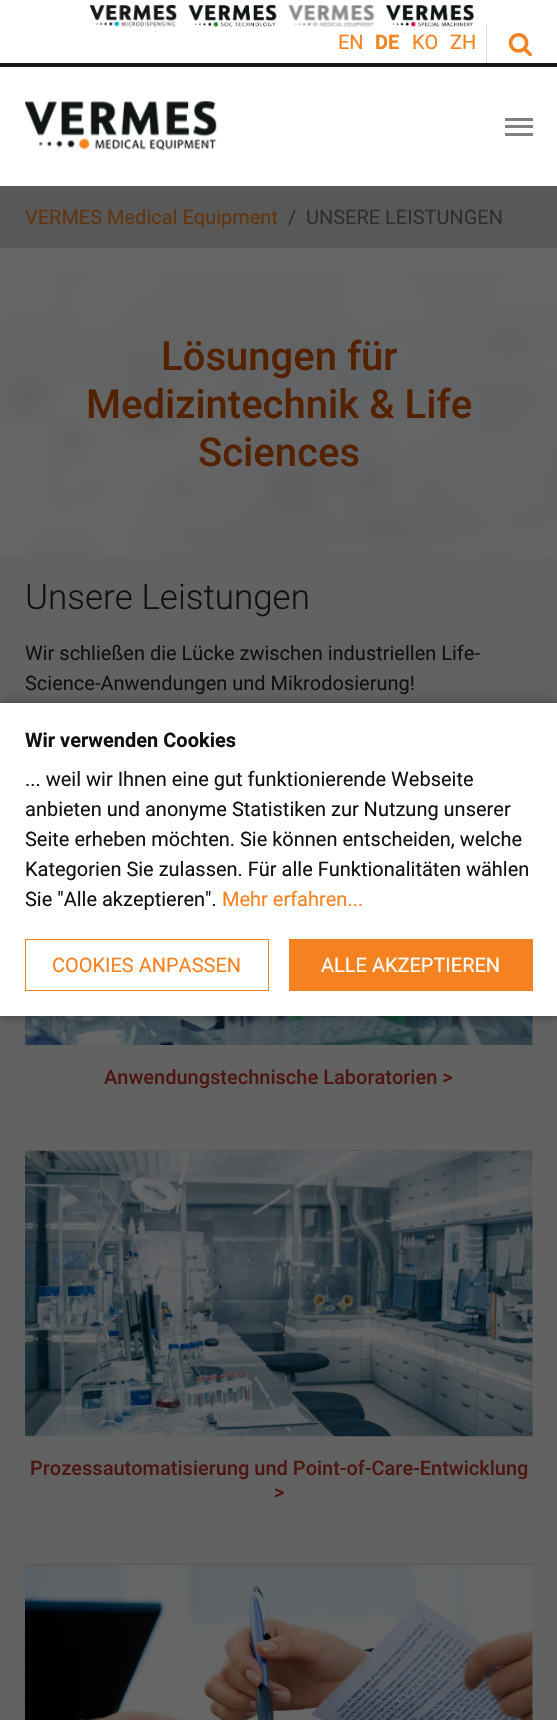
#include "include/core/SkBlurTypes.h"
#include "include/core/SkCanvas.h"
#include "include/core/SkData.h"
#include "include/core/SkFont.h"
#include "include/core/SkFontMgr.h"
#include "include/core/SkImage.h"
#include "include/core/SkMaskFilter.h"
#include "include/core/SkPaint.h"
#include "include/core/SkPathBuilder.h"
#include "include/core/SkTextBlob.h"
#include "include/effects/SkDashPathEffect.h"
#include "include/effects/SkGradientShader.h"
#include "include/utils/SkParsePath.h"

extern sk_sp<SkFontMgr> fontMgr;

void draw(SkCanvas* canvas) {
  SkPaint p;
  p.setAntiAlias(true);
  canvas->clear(SkColorSetRGB(102, 102, 102));
  p.setColor(SkColorSetRGB(87, 87, 87));
  canvas->drawPath(SkPathBuilder().moveTo(0, 186).lineTo(0, 188).lineTo(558, 188).lineTo(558, 1).lineTo(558, 186).close().detach(), p);
  p.setColor(SK_ColorWHITE);
  canvas->drawRect(SkRect::MakeLTRB(0, 0, 557, 186), p);
  canvas->drawImageRect(SkImages::DeferredFromEncodedData(SkData::MakeFromFileName("images/1.png")), SkRect::MakeLTRB(90, 5, 177, 27), SkSamplingOptions());
  canvas->drawImageRect(SkImages::DeferredFromEncodedData(SkData::MakeFromFileName("images/2.png")), SkRect::MakeLTRB(188, 5, 277, 27), SkSamplingOptions());
  canvas->drawImageRect(SkImages::DeferredFromEncodedData(SkData::MakeFromFileName("images/3.png")), SkRect::MakeLTRB(288, 5, 375, 27), SkSamplingOptions());
  canvas->drawImageRect(SkImages::DeferredFromEncodedData(SkData::MakeFromFileName("images/4.png")), SkRect::MakeLTRB(386, 5, 474, 28), SkSamplingOptions());
  p.setColor(SkColorSetRGB(219, 219, 219));
  canvas->drawRect(SkRect::MakeLTRB(486, 25, 487, 63), p);
  canvas->drawImageRect(SkImages::DeferredFromEncodedData(SkData::MakeFromFileName("images/5.png")), SkRect::MakeLTRB(508, 33, 532, 57), SkSamplingOptions());
  p.setColor(SkColorSetRGB(24, 23, 25));
  canvas->drawRect(SkRect::MakeLTRB(0, 63, 557, 67), p);
  canvas->drawImageRect(SkImages::DeferredFromEncodedData(SkData::MakeFromFileName("images/6.png")), SkRect::MakeLTRB(25, 101, 217, 151), SkSamplingOptions());
  p.setColor(SkColorSetRGB(128, 128, 128));
  canvas->drawRect(SkRect::MakeLTRB(505, 125, 533, 128), p);
  canvas->drawRect(SkRect::MakeLTRB(505, 118, 533, 121), p);
  canvas->drawRect(SkRect::MakeLTRB(505, 133, 533, 136), p);
  p.setColor(SkColorSetRGB(88, 88, 88));
  canvas->drawRect(SkRect::MakeLTRB(0, 188, 557, 248), p);
  canvas->drawImageRect(SkImages::DeferredFromEncodedData(SkData::MakeFromFileName("images/7.png")), SkRect::MakeLTRB(0, 272, 557, 556), SkSamplingOptions());
  p.setColor(SkColorSetRGB(98, 98, 98));
  canvas->drawRect(SkRect::MakeLTRB(0, 556, 557, 703), p);
  canvas->drawRect(SkRect::MakeLTRB(0, 1016, 557, 1720), p);
  canvas->drawImageRect(SkImages::DeferredFromEncodedData(SkData::MakeFromFileName("images/8.png")), SkRect::MakeLTRB(25, 1016, 533, 1045), SkSamplingOptions());
  p.setColor(SkColorSetRGB(86, 86, 86));
  canvas->drawRect(SkRect::MakeLTRB(25, 1150, 533, 1151), p);
  canvas->drawImageRect(SkImages::DeferredFromEncodedData(SkData::MakeFromFileName("images/9.png")), SkRect::MakeLTRB(25, 1151, 533, 1437), SkSamplingOptions());
  canvas->drawRect(SkRect::MakeLTRB(25, 1564, 533, 1565), p);
  canvas->drawImageRect(SkImages::DeferredFromEncodedData(SkData::MakeFromFileName("images/10.png")), SkRect::MakeLTRB(25, 1565, 533, 1720), SkSamplingOptions());
  p.setColor(SkColorSetARGB(89, 0, 0, 0));
  p.setMaskFilter(SkMaskFilter::MakeBlur(kNormal_SkBlurStyle, 6));
  canvas->drawRect(SkRect::MakeLTRB(0, 703, 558, 1016), p);
  p.setMaskFilter(nullptr);
  p.setColor(SK_ColorWHITE);
  canvas->drawRect(SkRect::MakeLTRB(0, 703, 557, 1016), p);
  p.setStyle(SkPaint::kStroke_Style);
  p.setStrokeWidth(1);
  p.setColor(SkColorSetRGB(245, 130, 32));
  canvas->drawRect(SkRect::MakeLTRB(25.5f, 939.5f, 268.5f, 990.5f), p);
  p.setStyle(SkPaint::kFill_Style);
  canvas->drawRect(SkRect::MakeLTRB(289, 939, 533, 991), p);
  SkFont font1(fontMgr->matchFamilyStyle("Roboto", SkFontStyle::Normal()), 20);
  font1.setSubpixel(true);
  canvas->drawString("EN", 338, 49, font1, p);
  SkFont font2(fontMgr->matchFamilyStyle("Roboto", SkFontStyle::Bold()), 20);
  font2.setSubpixel(true);
  canvas->drawString("DE", 375, 49, font2, p);
  canvas->drawString("KO", 412, 49, font1, p);
  canvas->drawString("ZH", 450, 49, font1, p);
  p.setColor(SkColorSetRGB(98, 52, 13));
  canvas->drawString("VERMES Medical Equipment", 25, 224, font1, p);
  p.setColor(SkColorSetRGB(43, 47, 50));
  canvas->drawString("/", 288, 224, font1, p);
  canvas->drawString("UNSERE LEISTUNGEN", 306, 224, font1, p);
  SkFont font3(fontMgr->matchFamilyStyle("Roboto", SkFontStyle(500, SkFontStyle::kNormal_Width, SkFontStyle::kUpright_Slant)), 40);
  font3.setSubpixel(true);
  p.setColor(SkColorSetRGB(84, 34, 0));
  canvas->drawString("Lösungen für", 161, 370, font3, p);
  canvas->drawString("Medizintechnik & Life", 86, 418, font3, p);
  canvas->drawString("Sciences", 198, 466, font3, p);
  SkFont font4(fontMgr->matchFamilyStyle("Roboto", SkFontStyle(300, SkFontStyle::kNormal_Width, SkFontStyle::kUpright_Slant)), 35);
  font4.setSubpixel(true);
  p.setColor(SkColorSetRGB(17, 17, 17));
  canvas->drawString("Unsere Leistungen", 25, 609, font4, p);
  canvas->drawString("Wir schließen die Lücke zwischen industriellen Life-", 25, 660, font1, p);
  canvas->drawString("Science-Anwendungen und Mikrodosierung!", 25, 690, font1, p);
  SkFont font5(fontMgr->matchFamilyStyle("Roboto", SkFontStyle(500, SkFontStyle::kNormal_Width, SkFontStyle::kUpright_Slant)), 20);
  font5.setSubpixel(true);
  p.setColor(SkColorSetRGB(77, 23, 17));
  canvas->drawString("Anwendungstechnische Laboratorien >", 104, 1084, font5, p);
  canvas->drawString("Prozessautomatisierung und Point-of-Care-Entwicklung", 30, 1475, font5, p);
  canvas->drawString(">", 274, 1499, font5, p);
  p.setColor(SkColorSetRGB(17, 17, 17));
  canvas->drawString("Wir verwenden Cookies", 25, 747, font2, p);
  canvas->drawString("... weil wir Ihnen eine gut funktionierende Webseite", 25, 786, font1, p);
  canvas->drawString("anbieten und anonyme Statistiken zur Nutzung unserer", 25, 816, font1, p);
  canvas->drawString("Seite erheben möchten. Sie können entscheiden, welche", 25, 846, font1, p);
  canvas->drawString("Kategorien Sie zulassen. Für alle Funktionalitäten wählen", 25, 876, font1, p);
  canvas->drawString("Sie \"Alle akzeptieren\".", 25, 906, font1, p);
  p.setColor(SkColorSetRGB(245, 130, 32));
  canvas->drawString("Mehr erfahren...", 222, 906, font1, p);
  canvas->drawString("COOKIES ANPASSEN", 52, 972, font1, p);
  p.setColor(SK_ColorWHITE);
  canvas->drawString("ALLE AKZEPTIEREN", 321, 972, font1, p);
}
